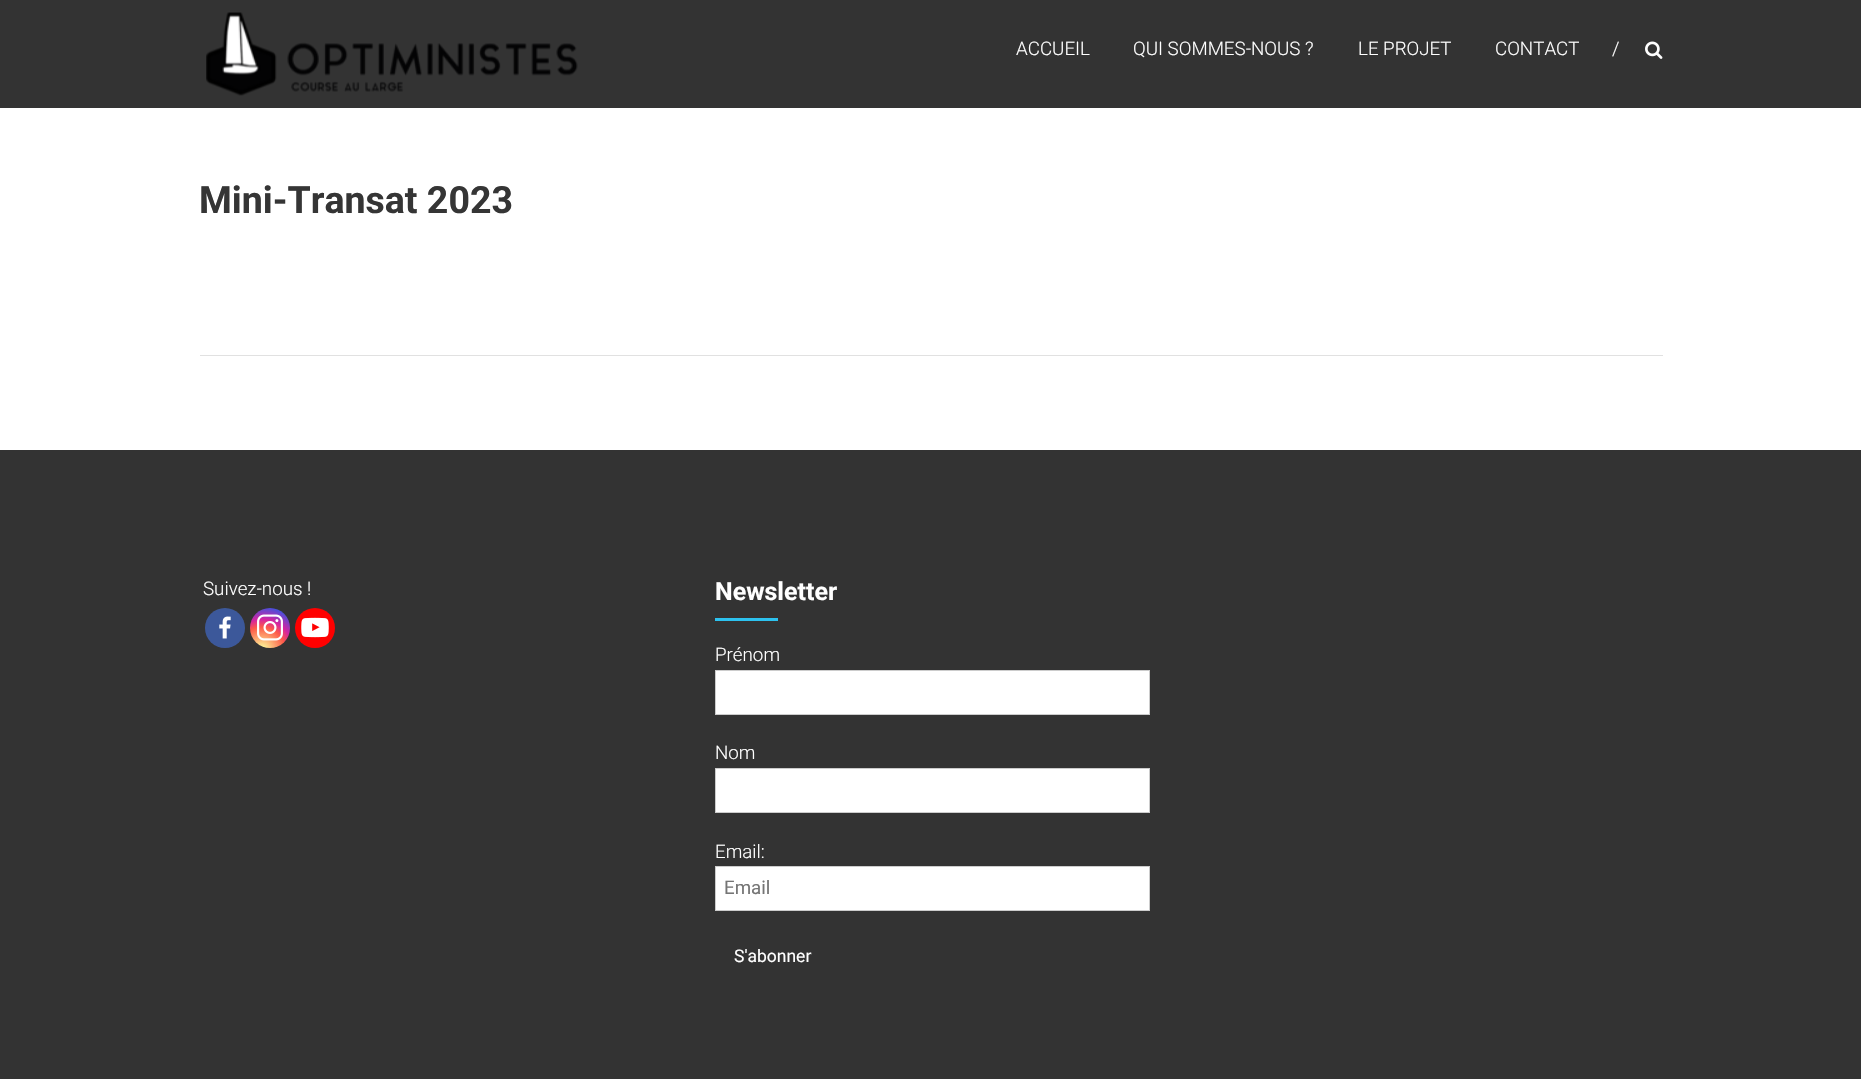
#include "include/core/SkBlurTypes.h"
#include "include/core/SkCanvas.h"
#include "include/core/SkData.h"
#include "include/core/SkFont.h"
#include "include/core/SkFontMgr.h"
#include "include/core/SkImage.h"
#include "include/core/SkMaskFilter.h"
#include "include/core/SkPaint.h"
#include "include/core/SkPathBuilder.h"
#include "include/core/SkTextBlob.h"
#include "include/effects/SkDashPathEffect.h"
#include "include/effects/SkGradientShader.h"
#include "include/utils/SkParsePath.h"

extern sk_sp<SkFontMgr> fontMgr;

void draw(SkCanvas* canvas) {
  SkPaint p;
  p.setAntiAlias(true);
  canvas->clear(SK_ColorWHITE);
  p.setColor(SkColorSetRGB(51, 51, 51));
  canvas->drawRect(SkRect::MakeLTRB(0, 0, 1861, 108), p);
  canvas->drawImageRect(SkImages::DeferredFromEncodedData(SkData::MakeFromFileName("images/1.png")), SkRect::MakeLTRB(206, 12, 578, 96), SkSamplingOptions());
  canvas->drawImageRect(SkImages::DeferredFromEncodedData(SkData::MakeFromFileName("images/2.png")), SkRect::MakeLTRB(1645, 41, 1663, 59), SkSamplingOptions());
  p.setColor(SkColorSetRGB(225, 225, 225));
  canvas->drawRect(SkRect::MakeLTRB(200, 355, 1663, 356), p);
  p.setColor(SkColorSetRGB(51, 51, 51));
  canvas->drawRect(SkRect::MakeLTRB(0, 450, 1861, 1079), p);
  p.setColor(SkColorSetRGB(60, 88, 154));
  canvas->drawCircle(225, 628, 20, p);
  canvas->drawImageRect(SkImages::DeferredFromEncodedData(SkData::MakeFromFileName("images/3.png")), SkRect::MakeLTRB(219, 616, 231, 639), SkSamplingOptions());
  {
    const SkColor colors[] = {SkColorSetRGB(253, 244, 151), SkColorSetRGB(253, 244, 151), SkColorSetRGB(253, 89, 73), SkColorSetRGB(214, 36, 159), SkColorSetRGB(40, 90, 235)};
    const float stops[] = {0, 0.05f, 0.45f, 0.6f, 0.9f};
    p.setShader(SkGradientShader::MakeRadial({262, 650}, 51, colors, stops, 5, SkTileMode::kClamp));
    p.setAlpha(255);
  }
  canvas->drawCircle(270, 628, 20, p);
  canvas->drawImageRect(SkImages::DeferredFromEncodedData(SkData::MakeFromFileName("images/4.png")), SkRect::MakeLTRB(257, 614, 283, 641), SkSamplingOptions());
  p.setShader(nullptr);
  p.setColor(SkColorSetRGB(255, 0, 0));
  canvas->drawCircle(315, 628, 20, p);
  canvas->drawImageRect(SkImages::DeferredFromEncodedData(SkData::MakeFromFileName("images/5.png")), SkRect::MakeLTRB(301, 617, 329, 638), SkSamplingOptions());
  p.setColor(SkColorSetRGB(45, 194, 239));
  canvas->drawRect(SkRect::MakeLTRB(715, 618, 778, 621), p);
  p.setColor(SK_ColorWHITE);
  canvas->drawRect(SkRect::MakeLTRB(715.5f, 670.5f, 1149.5f, 714.5f), p);
  p.setStyle(SkPaint::kStroke_Style);
  p.setStrokeWidth(1);
  p.setColor(SkColorSetRGB(204, 204, 204));
  canvas->drawRect(SkRect::MakeLTRB(715.5f, 670.5f, 1149.5f, 714.5f), p);
  p.setStyle(SkPaint::kFill_Style);
  p.setColor(SK_ColorWHITE);
  canvas->drawRect(SkRect::MakeLTRB(715.5f, 768.5f, 1149.5f, 812.5f), p);
  p.setStyle(SkPaint::kStroke_Style);
  p.setColor(SkColorSetRGB(204, 204, 204));
  canvas->drawRect(SkRect::MakeLTRB(715.5f, 768.5f, 1149.5f, 812.5f), p);
  p.setStyle(SkPaint::kFill_Style);
  p.setColor(SK_ColorWHITE);
  canvas->drawRect(SkRect::MakeLTRB(715.5f, 866.5f, 1149.5f, 910.5f), p);
  p.setStyle(SkPaint::kStroke_Style);
  p.setColor(SkColorSetRGB(204, 204, 204));
  canvas->drawRect(SkRect::MakeLTRB(715.5f, 866.5f, 1149.5f, 910.5f), p);
  SkFont font1(fontMgr->matchFamilyStyle("Roboto", SkFontStyle(300, SkFontStyle::kNormal_Width, SkFontStyle::kUpright_Slant)), 18.75f);
  font1.setSubpixel(true);
  p.setStyle(SkPaint::kFill_Style);
  p.setColor(SK_ColorWHITE);
  canvas->drawString("ACCUEIL", 1016, 55, font1, p);
  canvas->drawString("QUI SOMMES-NOUS ?", 1133, 55, font1, p);
  canvas->drawString("LE PROJET", 1358, 55, font1, p);
  canvas->drawString("CONTACT", 1495, 55, font1, p);
  canvas->drawString("/", 1612, 55, font1, p);
  SkFont font2(fontMgr->matchFamilyStyle("Roboto", SkFontStyle::Bold()), 37.5f);
  font2.setSubpixel(true);
  p.setColor(SkColorSetRGB(53, 53, 53));
  canvas->drawString("Mini-Transat 2023", 199, 213, font2, p);
  p.setColor(SK_ColorWHITE);
  canvas->drawString("Suivez-nous !", 203, 595, font1, p);
  SkFont font3(fontMgr->matchFamilyStyle("Roboto", SkFontStyle::Bold()), 25);
  font3.setSubpixel(true);
  canvas->drawString("Newsletter", 715, 600, font3, p);
  canvas->drawString("Prénom", 715, 661, font1, p);
  canvas->drawString("Nom", 715, 759, font1, p);
  canvas->drawString("Email:", 715, 858, font1, p);
  SkFont font4(fontMgr->matchFamilyStyle("Roboto", SkFontStyle::Normal()), 18.75f);
  font4.setSubpixel(true);
  p.setColor(SkColorSetRGB(117, 117, 117));
  canvas->drawString("Email", 724, 894, font4, p);
  SkFont font5(fontMgr->matchFamilyStyle("Roboto", SkFontStyle::Normal()), 17.5f);
  font5.setSubpixel(true);
  p.setColor(SK_ColorWHITE);
  canvas->drawString("S'abonner", 734, 962, font5, p);
}
